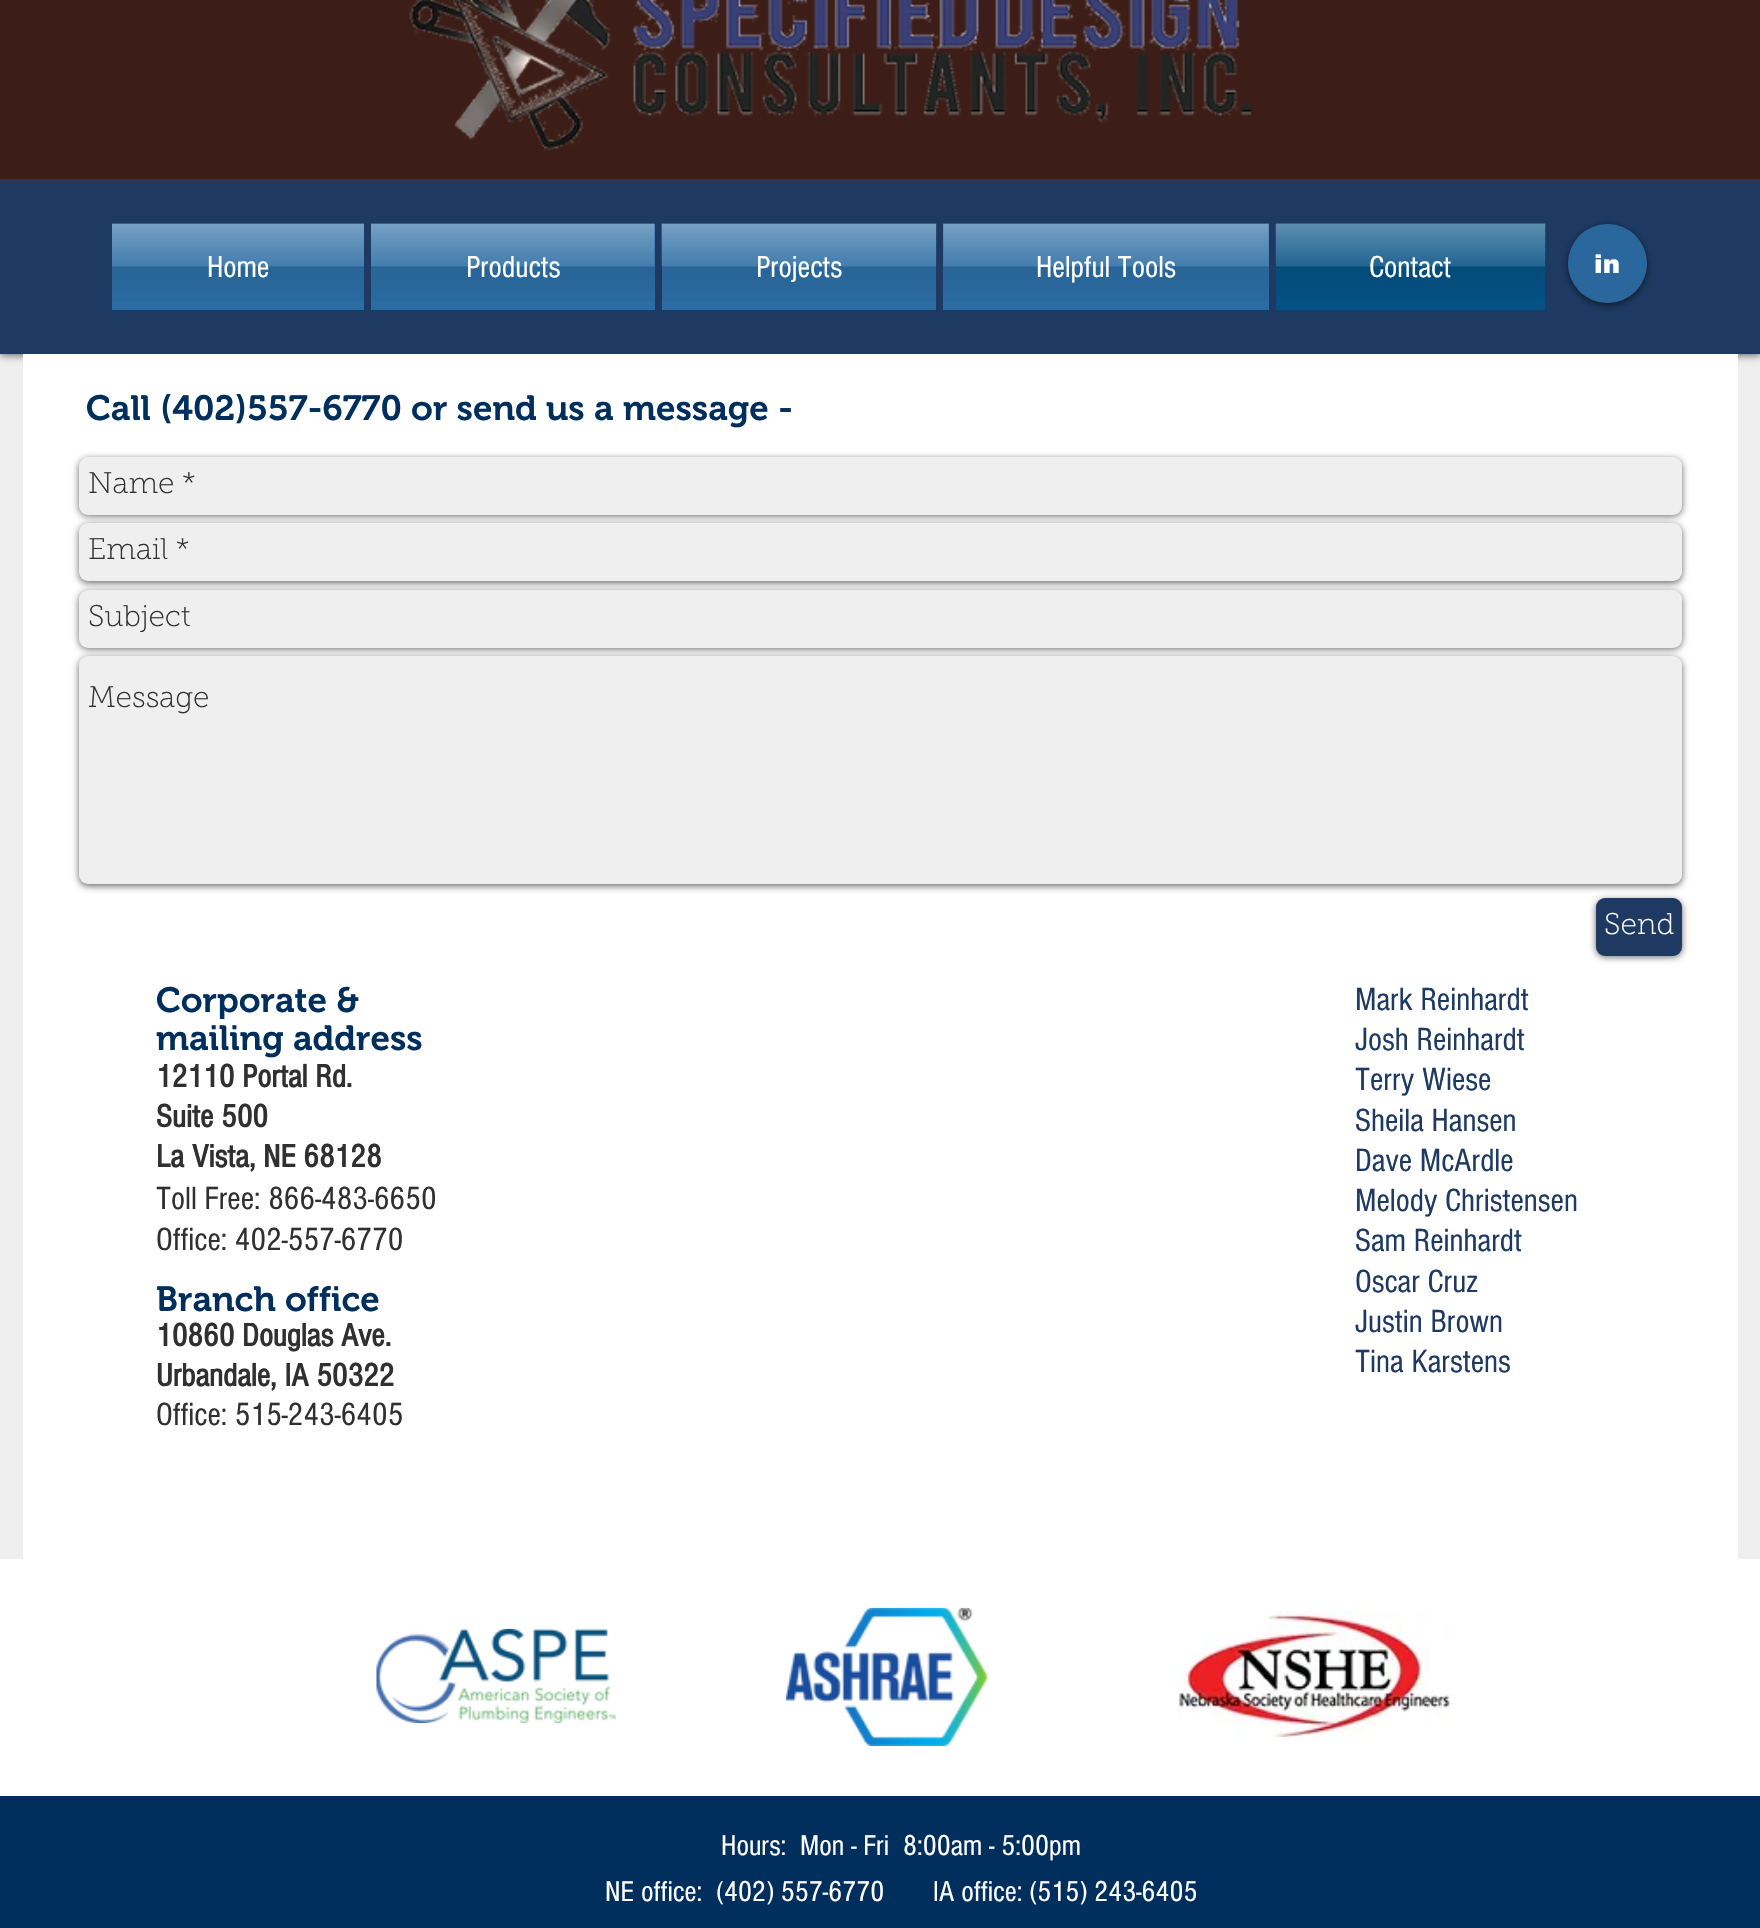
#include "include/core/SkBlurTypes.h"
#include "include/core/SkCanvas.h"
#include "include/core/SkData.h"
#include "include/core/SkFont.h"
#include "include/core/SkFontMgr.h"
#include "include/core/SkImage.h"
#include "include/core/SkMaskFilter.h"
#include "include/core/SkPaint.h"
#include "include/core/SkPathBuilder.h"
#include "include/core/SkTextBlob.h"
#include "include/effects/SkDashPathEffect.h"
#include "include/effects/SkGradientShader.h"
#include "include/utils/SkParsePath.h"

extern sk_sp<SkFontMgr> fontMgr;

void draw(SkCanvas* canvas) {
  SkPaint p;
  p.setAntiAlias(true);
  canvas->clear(SkColorSetRGB(239, 239, 239));
  p.setColor(SkColorSetARGB(191, 0, 0, 0));
  p.setMaskFilter(SkMaskFilter::MakeBlur(kNormal_SkBlurStyle, 4.5f));
  canvas->drawRect(SkRect::MakeLTRB(0, -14, 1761, 354), p);
  p.setMaskFilter(nullptr);
  p.setColor(SkColorSetRGB(30, 58, 99));
  canvas->drawRect(SkRect::MakeLTRB(0, 179, 1760, 354), p);
  p.setColor(SkColorSetRGB(60, 29, 23));
  canvas->drawRect(SkRect::MakeLTRB(0, 0, 1760, 179), p);
  canvas->drawImageRect(SkImages::DeferredFromEncodedData(SkData::MakeFromFileName("images/1.png")), SkRect::MakeLTRB(409, 0, 1251, 151), SkSamplingOptions());
  p.setColor(SkColorSetRGB(43, 108, 163));
  canvas->drawRect(SkRect::MakeLTRB(112, 224, 364, 310), p);
  canvas->drawImageRect(SkImages::DeferredFromEncodedData(SkData::MakeFromFileName("images/2.png")), SkRect::MakeLTRB(112, 223, 364, 301), SkSamplingOptions());
  canvas->drawRect(SkRect::MakeLTRB(371, 224, 655, 310), p);
  canvas->drawImageRect(SkImages::DeferredFromEncodedData(SkData::MakeFromFileName("images/3.png")), SkRect::MakeLTRB(371, 223, 655, 301), SkSamplingOptions());
  canvas->drawRect(SkRect::MakeLTRB(662, 224, 936, 310), p);
  canvas->drawImageRect(SkImages::DeferredFromEncodedData(SkData::MakeFromFileName("images/4.png")), SkRect::MakeLTRB(661, 223, 937, 301), SkSamplingOptions());
  canvas->drawRect(SkRect::MakeLTRB(943, 224, 1269, 310), p);
  canvas->drawImageRect(SkImages::DeferredFromEncodedData(SkData::MakeFromFileName("images/5.png")), SkRect::MakeLTRB(943, 223, 1269, 301), SkSamplingOptions());
  p.setColor(SkColorSetRGB(4, 81, 132));
  canvas->drawRect(SkRect::MakeLTRB(1276, 224, 1545, 310), p);
  canvas->drawImageRect(SkImages::DeferredFromEncodedData(SkData::MakeFromFileName("images/6.png")), SkRect::MakeLTRB(1275, 223, 1546, 297), SkSamplingOptions());
  canvas->save();
  canvas->clipPath(SkPathBuilder(SkPathFillType::kEvenOdd).moveTo(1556, 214).lineTo(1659, 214).lineTo(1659, 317).lineTo(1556, 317).close().moveTo(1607.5f, 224).cubicTo(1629.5f, 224, 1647, 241.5f, 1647, 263.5f).cubicTo(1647, 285.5f, 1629.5f, 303, 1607.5f, 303).cubicTo(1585.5f, 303, 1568, 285.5f, 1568, 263.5f).cubicTo(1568, 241.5f, 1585.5f, 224, 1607.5f, 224).close().detach(), true);
  p.setColor(SkColorSetARGB(153, 0, 0, 0));
  p.setMaskFilter(SkMaskFilter::MakeBlur(kNormal_SkBlurStyle, 3.5f));
  canvas->drawRoundRect(SkRect::MakeLTRB(1568, 226, 1647, 305), 39.5f, 39.5f, p);
  p.setMaskFilter(nullptr);
  canvas->restore();
  p.setColor(SkColorSetARGB(230, 43, 108, 163));
  canvas->drawCircle(1607.5f, 263.5f, 39.5f, p);
  p.setColor(SK_ColorWHITE);
  canvas->drawRect(SkRect::MakeLTRB(23, 354, 1738, 1559), p);
  p.setColor(SkColorSetARGB(153, 0, 0, 0));
  p.setMaskFilter(SkMaskFilter::MakeBlur(kNormal_SkBlurStyle, 3.5f));
  canvas->drawRoundRect(SkRect::MakeLTRB(79, 459, 1682, 516), 9, 9, p);
  p.setMaskFilter(nullptr);
  p.setColor(SkColorSetRGB(239, 239, 239));
  canvas->drawRoundRect(SkRect::MakeLTRB(79, 457, 1682, 515), 9, 9, p);
  p.setColor(SkColorSetARGB(153, 0, 0, 0));
  p.setMaskFilter(SkMaskFilter::MakeBlur(kNormal_SkBlurStyle, 3.5f));
  canvas->drawRoundRect(SkRect::MakeLTRB(79, 525, 1682, 583), 9, 9, p);
  p.setMaskFilter(nullptr);
  p.setColor(SkColorSetRGB(239, 239, 239));
  canvas->drawRoundRect(SkRect::MakeLTRB(79, 523, 1682, 581), 9, 9, p);
  p.setColor(SkColorSetARGB(153, 0, 0, 0));
  p.setMaskFilter(SkMaskFilter::MakeBlur(kNormal_SkBlurStyle, 3.5f));
  canvas->drawRoundRect(SkRect::MakeLTRB(79, 592, 1682, 649), 9, 9, p);
  p.setMaskFilter(nullptr);
  p.setColor(SkColorSetRGB(239, 239, 239));
  canvas->drawRoundRect(SkRect::MakeLTRB(79, 590, 1682, 648), 9, 9, p);
  p.setColor(SkColorSetARGB(153, 0, 0, 0));
  p.setMaskFilter(SkMaskFilter::MakeBlur(kNormal_SkBlurStyle, 3.5f));
  canvas->drawRoundRect(SkRect::MakeLTRB(79, 658, 1682, 886), 9, 9, p);
  p.setMaskFilter(nullptr);
  p.setColor(SkColorSetRGB(239, 239, 239));
  canvas->drawRoundRect(SkRect::MakeLTRB(79, 656, 1682, 884), 9, 9, p);
  p.setColor(SkColorSetARGB(153, 0, 0, 0));
  p.setMaskFilter(SkMaskFilter::MakeBlur(kNormal_SkBlurStyle, 3.5f));
  canvas->drawRoundRect(SkRect::MakeLTRB(1596, 900, 1682, 957), 9, 9, p);
  p.setMaskFilter(nullptr);
  p.setColor(SkColorSetRGB(30, 58, 99));
  canvas->drawRoundRect(SkRect::MakeLTRB(1596, 898, 1682, 956), 9, 9, p);
  p.setColor(SK_ColorWHITE);
  canvas->drawRect(SkRect::MakeLTRB(0, 1559, 1760, 1796), p);
  canvas->drawImageRect(SkImages::DeferredFromEncodedData(SkData::MakeFromFileName("images/7.png")), SkRect::MakeLTRB(376, 1628, 616, 1724), SkSamplingOptions());
  canvas->drawImageRect(SkImages::DeferredFromEncodedData(SkData::MakeFromFileName("images/8.png")), SkRect::MakeLTRB(785, 1607, 987, 1746), SkSamplingOptions());
  canvas->drawImageRect(SkImages::DeferredFromEncodedData(SkData::MakeFromFileName("images/9.png")), SkRect::MakeLTRB(1178, 1611, 1452, 1737), SkSamplingOptions());
  p.setColor(SkColorSetRGB(0, 46, 93));
  canvas->drawRect(SkRect::MakeLTRB(0, 1796, 1760, 1928), p);
  SkFont font1(fontMgr->matchFamilyStyle("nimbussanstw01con", SkFontStyle::Normal()), 31.5f);
  font1.setSubpixel(true);
  p.setColor(SK_ColorWHITE);
  canvas->drawString("Home", 207, 277, font1, p);
  canvas->drawString("Products", 466, 277, font1, p);
  canvas->drawString("Projects", 756, 277, font1, p);
  canvas->drawString("Helpful Tools", 1036, 277, font1, p);
  canvas->drawString("Contact", 1369, 277, font1, p);
  SkFont font2(fontMgr->matchFamilyStyle("arial", SkFontStyle(900, SkFontStyle::kNormal_Width, SkFontStyle::kUpright_Slant)), 26);
  font2.setSubpixel(true);
  canvas->drawString("in", 1594, 273, font2, p);
  SkFont font3(fontMgr->matchFamilyStyle("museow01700", SkFontStyle(600, SkFontStyle::kNormal_Width, SkFontStyle::kUpright_Slant)), 35);
  font3.setSubpixel(true);
  p.setColor(SkColorSetRGB(0, 46, 93));
  canvas->drawString("Call (402)557-6770 or send us a message -", 86, 420, font3, p);
  SkFont font4(fontMgr->matchFamilyStyle("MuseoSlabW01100", SkFontStyle(100, SkFontStyle::kNormal_Width, SkFontStyle::kUpright_Slant)), 29.75f);
  font4.setSubpixel(true);
  p.setColor(SkColorSetRGB(48, 48, 48));
  canvas->drawString("Name *", 88, 493, font4, p);
  canvas->drawString("Email *", 88, 559, font4, p);
  canvas->drawString("Subject", 88, 626, font4, p);
  canvas->drawString("Message", 88, 707, font4, p);
  p.setColor(SK_ColorWHITE);
  canvas->drawString("Send", 1604, 934, font4, p);
  p.setColor(SkColorSetRGB(0, 46, 93));
  canvas->drawString("Corporate &", 156, 1012, font3, p);
  canvas->drawString("mailing address", 156, 1050, font3, p);
  SkFont font5(fontMgr->matchFamilyStyle("nimbussanstw01con", SkFontStyle::Bold()), 33.25f);
  font5.setSubpixel(true);
  p.setColor(SkColorSetRGB(48, 48, 48));
  canvas->drawString("12110 Portal Rd.", 156, 1087, font5, p);
  canvas->drawString("Suite 500", 156, 1127, font5, p);
  canvas->drawString("La Vista, NE 68128", 156, 1167, font5, p);
  SkFont font6(fontMgr->matchFamilyStyle("nimbussanstw01con", SkFontStyle::Normal()), 33.25f);
  font6.setSubpixel(true);
  canvas->drawString("Toll Free: 866-483-6650", 156, 1209, font6, p);
  canvas->drawString("Office: 402-557-6770", 156, 1250, font6, p);
  p.setColor(SkColorSetRGB(0, 46, 93));
  canvas->drawString("Branch office", 156, 1311, font3, p);
  p.setColor(SkColorSetRGB(48, 48, 48));
  canvas->drawString("10860 Douglas Ave.", 156, 1346, font5, p);
  canvas->drawString("Urbandale, IA 50322", 156, 1386, font5, p);
  canvas->drawString("Office: 515-243-6405", 156, 1425, font6, p);
  p.setColor(SkColorSetRGB(30, 58, 99));
  canvas->drawString("Mark Reinhardt", 1355, 1010, font6, p);
  canvas->drawString("Josh Reinhardt", 1355, 1050, font6, p);
  canvas->drawString("Terry Wiese", 1355, 1090, font6, p);
  canvas->drawString("Sheila Hansen", 1355, 1131, font6, p);
  canvas->drawString("Dave McArdle", 1355, 1171, font6, p);
  canvas->drawString("Melody Christensen", 1355, 1211, font6, p);
  canvas->drawString("Sam Reinhardt", 1355, 1251, font6, p);
  canvas->drawString("Oscar Cruz", 1355, 1292, font6, p);
  canvas->drawString("Justin Brown", 1355, 1332, font6, p);
  canvas->drawString("Tina Karstens", 1355, 1372, font6, p);
  SkFont font7(fontMgr->matchFamilyStyle("nimbussanstw01con", SkFontStyle::Normal()), 29.75f);
  font7.setSubpixel(true);
  p.setColor(SK_ColorWHITE);
  canvas->drawString("Hours:  Mon - Fri  8:00am - 5:00pm", 721, 1855, font7, p);
  canvas->drawString("NE office:  (402) 557-6770       IA office: (515) 243-6405", 605, 1901, font7, p);
}
